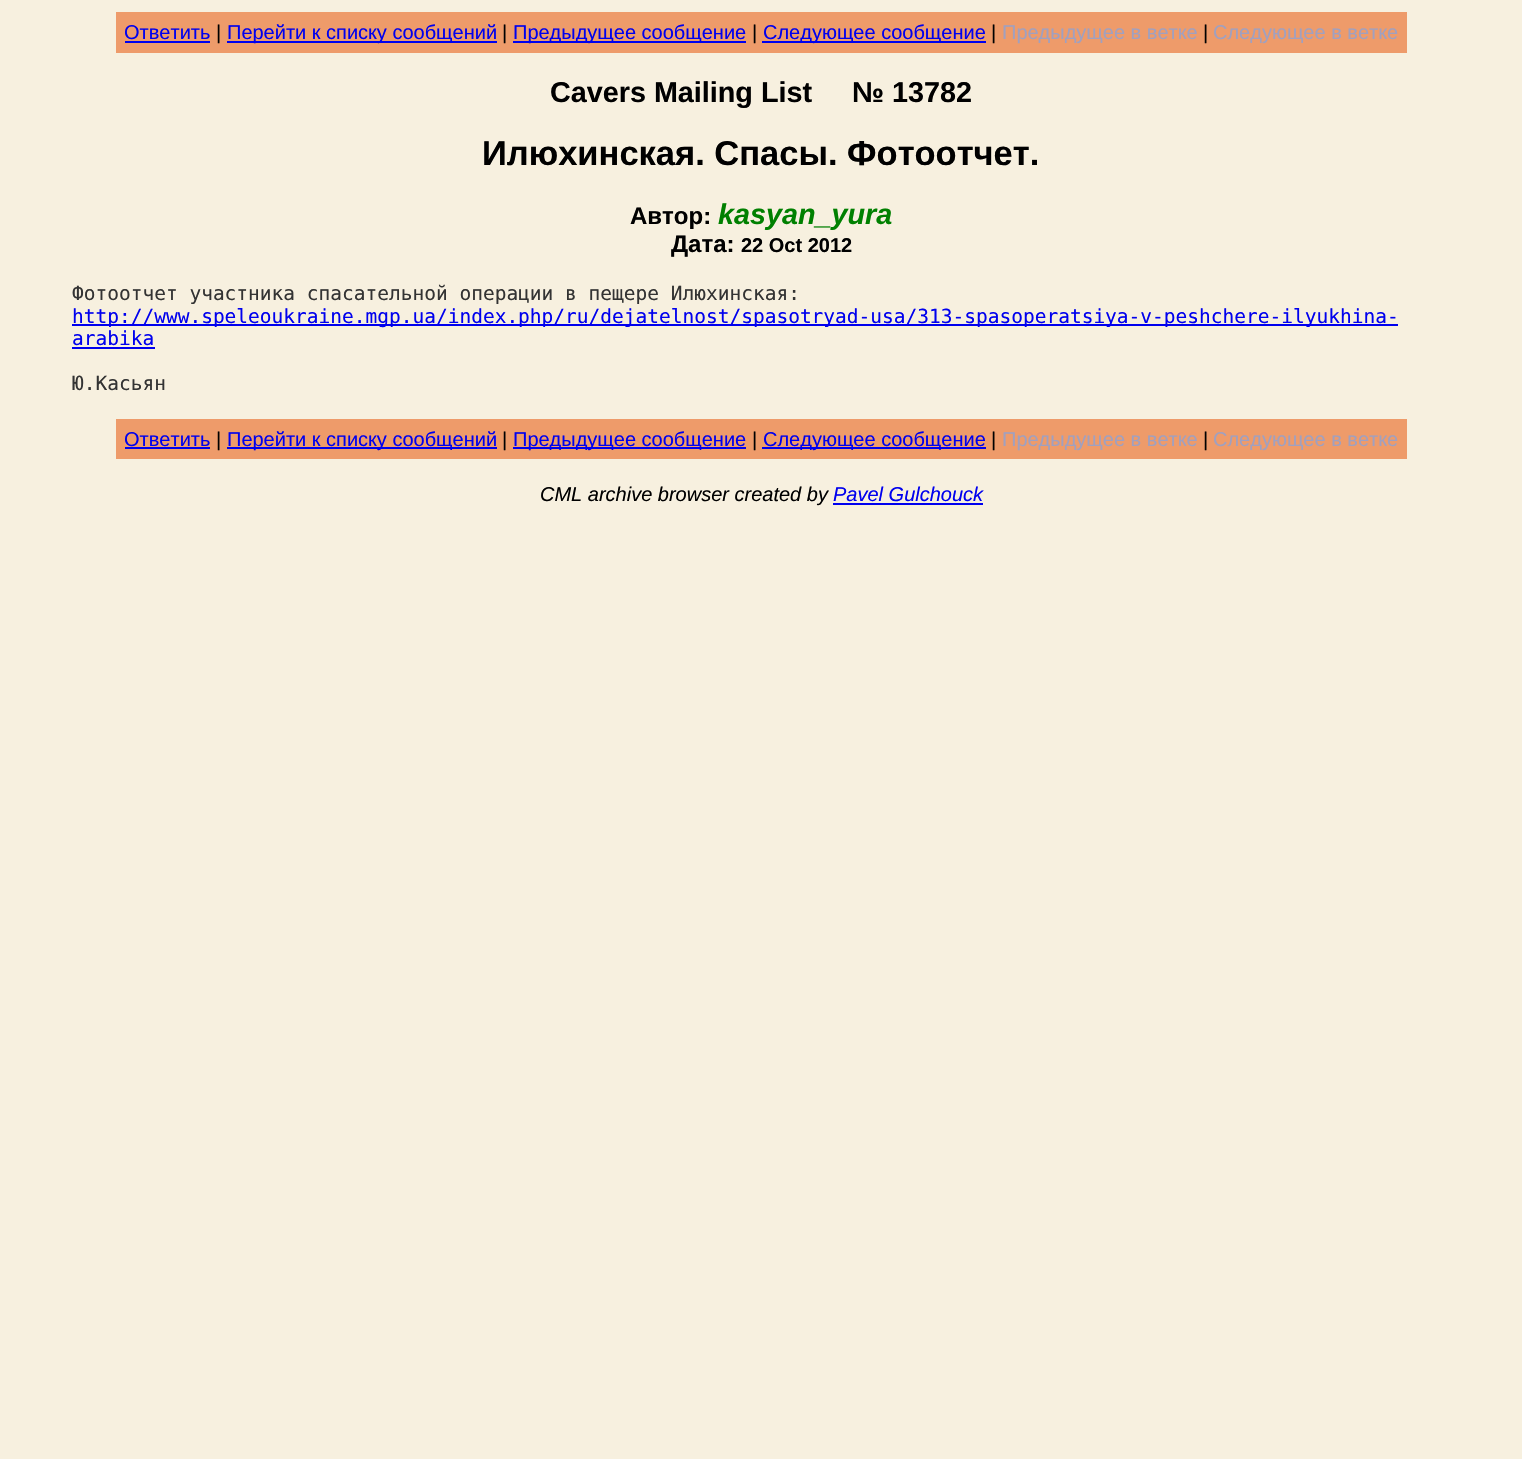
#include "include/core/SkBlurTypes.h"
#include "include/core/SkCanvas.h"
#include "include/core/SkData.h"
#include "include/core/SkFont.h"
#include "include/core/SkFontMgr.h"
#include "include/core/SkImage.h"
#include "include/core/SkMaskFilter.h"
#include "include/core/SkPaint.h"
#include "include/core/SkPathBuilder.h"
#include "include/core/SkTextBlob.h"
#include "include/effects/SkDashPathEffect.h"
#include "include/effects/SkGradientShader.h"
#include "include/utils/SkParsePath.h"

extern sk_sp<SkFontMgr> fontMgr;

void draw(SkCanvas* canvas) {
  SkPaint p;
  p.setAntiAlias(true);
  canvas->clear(SkColorSetRGB(247, 240, 223));
  p.setColor(SkColorSetRGB(238, 155, 106));
  canvas->drawRect(SkRect::MakeLTRB(116, 12, 1407, 53), p);
  p.setColor(SkColorSetRGB(0, 0, 238));
  canvas->drawRect(SkRect::MakeLTRB(125, 41, 210, 43), p);
  canvas->drawRect(SkRect::MakeLTRB(227, 41, 497, 43), p);
  canvas->drawRect(SkRect::MakeLTRB(513, 41, 746, 43), p);
  canvas->drawRect(SkRect::MakeLTRB(762, 41, 986, 43), p);
  canvas->drawRect(SkRect::MakeLTRB(72, 324, 1398, 326), p);
  canvas->drawRect(SkRect::MakeLTRB(72, 347, 155, 349), p);
  p.setColor(SkColorSetRGB(238, 155, 106));
  canvas->drawRect(SkRect::MakeLTRB(116, 419, 1407, 459), p);
  p.setColor(SkColorSetRGB(0, 0, 238));
  canvas->drawRect(SkRect::MakeLTRB(125, 447, 210, 449), p);
  canvas->drawRect(SkRect::MakeLTRB(227, 447, 497, 449), p);
  canvas->drawRect(SkRect::MakeLTRB(513, 447, 746, 449), p);
  canvas->drawRect(SkRect::MakeLTRB(762, 447, 986, 449), p);
  canvas->drawRect(SkRect::MakeLTRB(833, 503, 983, 505), p);
  SkFont font1(fontMgr->matchFamilyStyle("Liberation Sans", SkFontStyle::Normal()), 20);
  font1.setSubpixel(true);
  canvas->drawString("Ответить", 124, 39, font1, p);
  p.setColor(SK_ColorBLACK);
  canvas->drawString("|", 216, 39, font1, p);
  p.setColor(SkColorSetRGB(0, 0, 238));
  canvas->drawString("Перейти к списку сообщений", 227, 39, font1, p);
  p.setColor(SK_ColorBLACK);
  canvas->drawString("|", 502, 39, font1, p);
  p.setColor(SkColorSetRGB(0, 0, 238));
  canvas->drawString("Предыдущее сообщение", 513, 39, font1, p);
  p.setColor(SK_ColorBLACK);
  canvas->drawString("|", 752, 39, font1, p);
  p.setColor(SkColorSetRGB(0, 0, 238));
  canvas->drawString("Следующее сообщение", 763, 39, font1, p);
  p.setColor(SK_ColorBLACK);
  canvas->drawString("|", 991, 39, font1, p);
  p.setColor(SkColorSetRGB(160, 160, 192));
  canvas->drawString("Предыдущее в ветке", 1002, 39, font1, p);
  p.setColor(SK_ColorBLACK);
  canvas->drawString("|", 1203, 39, font1, p);
  p.setColor(SkColorSetRGB(160, 160, 192));
  canvas->drawString("Следующее в ветке", 1213, 39, font1, p);
  SkFont font2(fontMgr->matchFamilyStyle("Liberation Sans", SkFontStyle::Bold()), 28.75f);
  font2.setSubpixel(true);
  p.setColor(SK_ColorBLACK);
  canvas->drawString("Cavers Mailing List     № 13782", 550, 102, font2, p);
  SkFont font3(fontMgr->matchFamilyStyle("Liberation Sans", SkFontStyle::Bold()), 34.5f);
  font3.setSubpixel(true);
  canvas->drawString("Илюхинская. Спасы. Фотоотчет.", 482, 165, font3, p);
  SkFont font4(fontMgr->matchFamilyStyle("Liberation Sans", SkFontStyle::Bold()), 24);
  font4.setSubpixel(true);
  canvas->drawString("Автор:", 630, 224, font4, p);
  SkFont font5(fontMgr->matchFamilyStyle("Liberation Sans", SkFontStyle::BoldItalic()), 28.75f);
  font5.setSubpixel(true);
  p.setColor(SkColorSetRGB(0, 128, 0));
  canvas->drawString("kasyan_yura", 718, 224, font5, p);
  p.setColor(SK_ColorBLACK);
  canvas->drawString("Дата:", 671, 252, font4, p);
  SkFont font6(fontMgr->matchFamilyStyle("Liberation Sans", SkFontStyle::Bold()), 20);
  font6.setSubpixel(true);
  canvas->drawString("22 Oct 2012", 741, 252, font6, p);
  SkFont font7(fontMgr->matchFamilyStyle("DejaVu Sans Mono", SkFontStyle::Normal()), 19.5f);
  font7.setSubpixel(true);
  p.setColor(SkColorSetRGB(51, 51, 51));
  canvas->drawString("Фотоотчет участника спасательной операции в пещере Илюхинская:", 72, 300, font7, p);
  p.setColor(SkColorSetRGB(0, 0, 238));
  canvas->drawString("http://www.speleoukraine.mgp.ua/index.php/ru/dejatelnost/spasotryad-usa/313-spasoperatsiya-v-peshchere-ilyukhina-", 72, 323, font7, p);
  canvas->drawString("arabika", 72, 345, font7, p);
  p.setColor(SkColorSetRGB(51, 51, 51));
  canvas->drawString("Ю.Касьян", 72, 390, font7, p);
  p.setColor(SkColorSetRGB(0, 0, 238));
  canvas->drawString("Ответить", 124, 446, font1, p);
  p.setColor(SK_ColorBLACK);
  canvas->drawString("|", 216, 446, font1, p);
  p.setColor(SkColorSetRGB(0, 0, 238));
  canvas->drawString("Перейти к списку сообщений", 227, 446, font1, p);
  p.setColor(SK_ColorBLACK);
  canvas->drawString("|", 502, 446, font1, p);
  p.setColor(SkColorSetRGB(0, 0, 238));
  canvas->drawString("Предыдущее сообщение", 513, 446, font1, p);
  p.setColor(SK_ColorBLACK);
  canvas->drawString("|", 752, 446, font1, p);
  p.setColor(SkColorSetRGB(0, 0, 238));
  canvas->drawString("Следующее сообщение", 763, 446, font1, p);
  p.setColor(SK_ColorBLACK);
  canvas->drawString("|", 991, 446, font1, p);
  p.setColor(SkColorSetRGB(160, 160, 192));
  canvas->drawString("Предыдущее в ветке", 1002, 446, font1, p);
  p.setColor(SK_ColorBLACK);
  canvas->drawString("|", 1203, 446, font1, p);
  p.setColor(SkColorSetRGB(160, 160, 192));
  canvas->drawString("Следующее в ветке", 1213, 446, font1, p);
  SkFont font8(fontMgr->matchFamilyStyle("Liberation Sans", SkFontStyle::Italic()), 20);
  font8.setSubpixel(true);
  p.setColor(SK_ColorBLACK);
  canvas->drawString("CML archive browser created by", 540, 501, font8, p);
  p.setColor(SkColorSetRGB(0, 0, 238));
  canvas->drawString("Pavel Gulchouck", 833, 501, font8, p);
}
